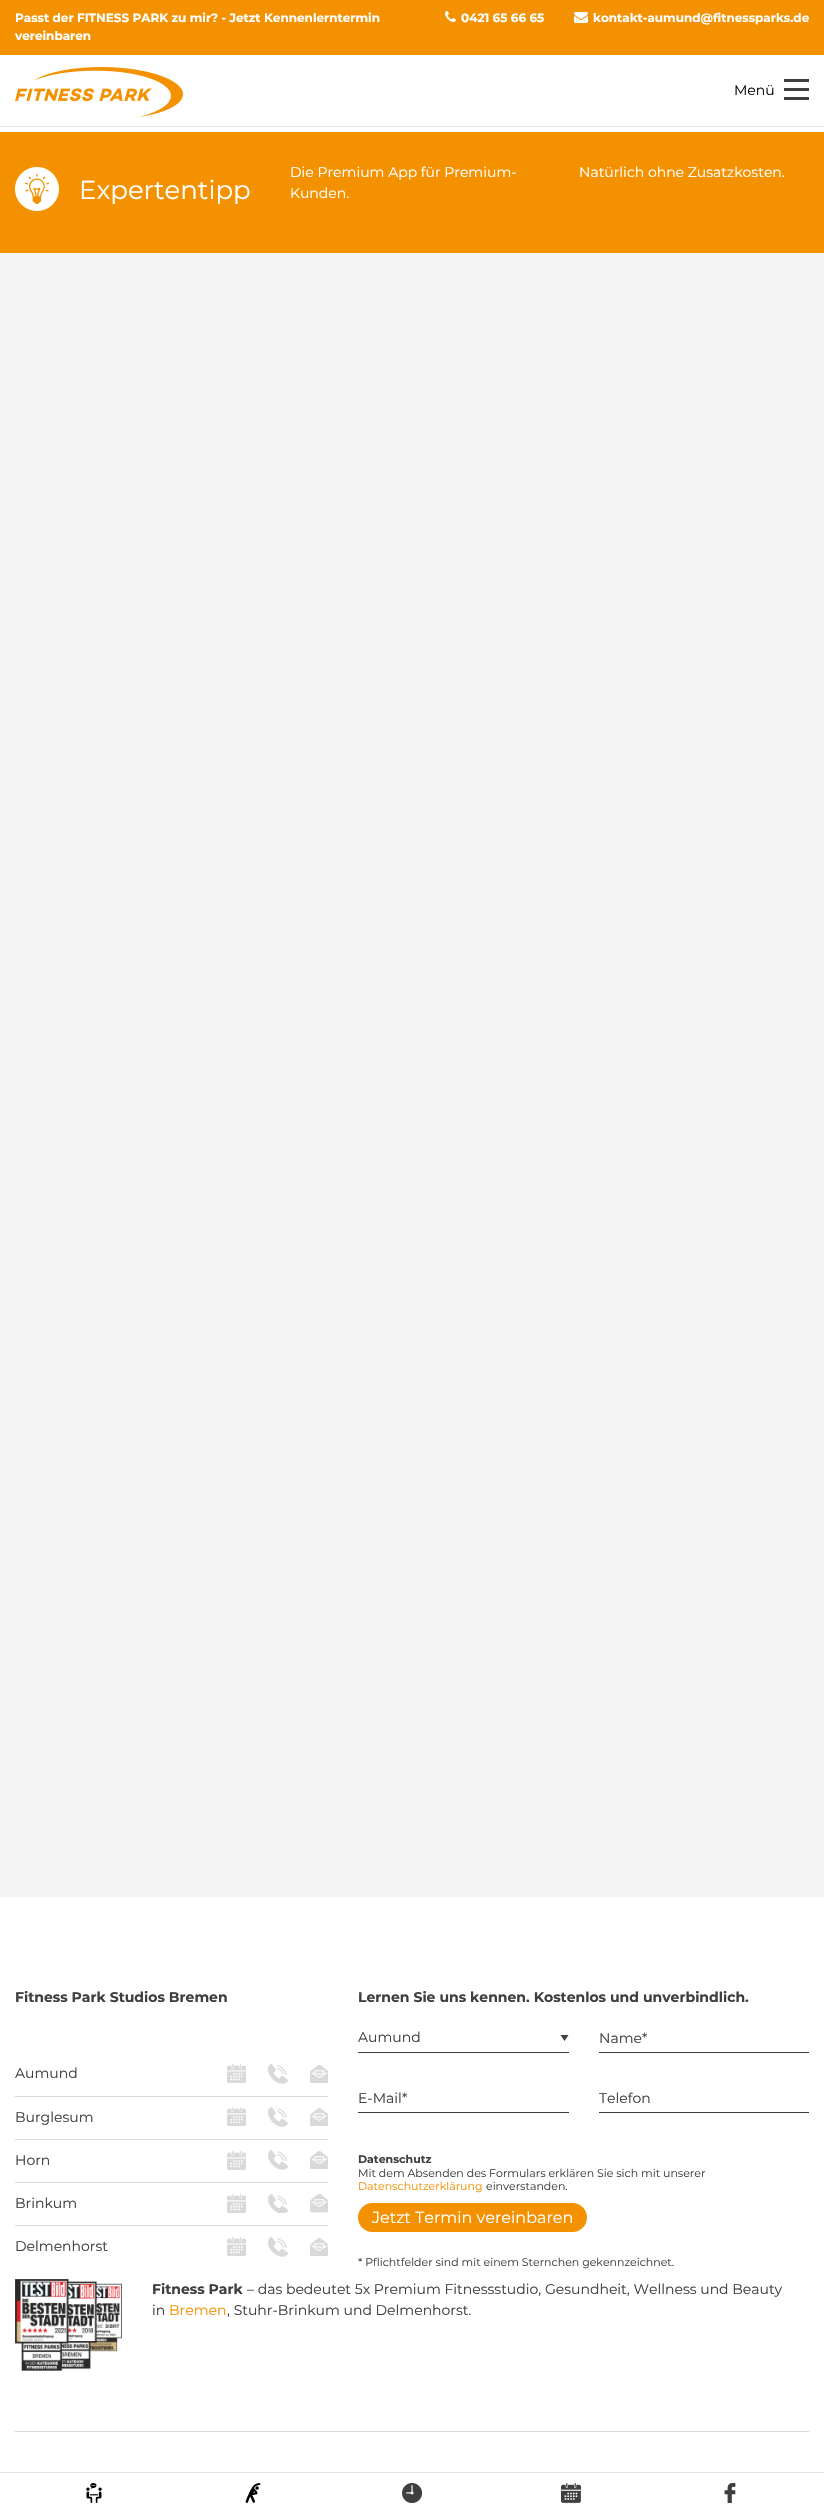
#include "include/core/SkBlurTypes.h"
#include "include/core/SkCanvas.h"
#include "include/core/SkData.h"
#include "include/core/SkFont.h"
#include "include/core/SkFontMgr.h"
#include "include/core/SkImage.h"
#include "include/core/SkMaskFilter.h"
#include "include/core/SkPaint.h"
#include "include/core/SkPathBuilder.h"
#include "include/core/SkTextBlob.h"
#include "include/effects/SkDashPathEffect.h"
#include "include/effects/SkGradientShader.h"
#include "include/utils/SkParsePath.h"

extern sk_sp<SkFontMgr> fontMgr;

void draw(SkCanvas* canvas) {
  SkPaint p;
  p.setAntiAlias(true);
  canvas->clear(SK_ColorWHITE);
  p.setColor(SkColorSetRGB(229, 229, 229));
  canvas->drawRect(SkRect::MakeLTRB(0, 126, 824, 127), p);
  p.setColor(SkColorSetRGB(243, 145, 0));
  canvas->drawRect(SkRect::MakeLTRB(0, 0, 824, 55), p);
  canvas->drawImageRect(SkImages::DeferredFromEncodedData(SkData::MakeFromFileName("images/1.png")), SkRect::MakeLTRB(445, 11, 456, 22), SkSamplingOptions());
  canvas->drawImageRect(SkImages::DeferredFromEncodedData(SkData::MakeFromFileName("images/2.png")), SkRect::MakeLTRB(574, 12, 588, 23), SkSamplingOptions());
  canvas->drawImageRect(SkImages::DeferredFromEncodedData(SkData::MakeFromFileName("images/3.png")), SkRect::MakeLTRB(15, 67, 183, 117), SkSamplingOptions());
  p.setColor(SkColorSetRGB(63, 63, 63));
  canvas->drawRect(SkRect::MakeLTRB(784, 88, 809, 91), p);
  canvas->drawRect(SkRect::MakeLTRB(784, 79, 809, 82), p);
  canvas->drawRect(SkRect::MakeLTRB(784, 97, 809, 100), p);
  p.setColor(SkColorSetRGB(243, 145, 0));
  canvas->drawRect(SkRect::MakeLTRB(0, 132, 824, 253), p);
  canvas->drawImageRect(SkImages::DeferredFromEncodedData(SkData::MakeFromFileName("images/4.png")), SkRect::MakeLTRB(15, 167, 59, 211), SkSamplingOptions());
  p.setColor(SkColorSetRGB(244, 244, 244));
  canvas->drawRect(SkRect::MakeLTRB(0, 253, 824, 1897), p);
  canvas->drawImageRect(SkImages::DeferredFromEncodedData(SkData::MakeFromFileName("images/5.png")), SkRect::MakeLTRB(227, 2064, 246, 2083), SkSamplingOptions());
  canvas->drawImageRect(SkImages::DeferredFromEncodedData(SkData::MakeFromFileName("images/6.png")), SkRect::MakeLTRB(268, 2064, 288, 2084), SkSamplingOptions());
  canvas->drawImageRect(SkImages::DeferredFromEncodedData(SkData::MakeFromFileName("images/7.png")), SkRect::MakeLTRB(310, 2065, 328, 2083), SkSamplingOptions());
  p.setColor(SkColorSetRGB(217, 217, 217));
  canvas->drawRect(SkRect::MakeLTRB(15, 2096, 328, 2097), p);
  canvas->drawImageRect(SkImages::DeferredFromEncodedData(SkData::MakeFromFileName("images/5.png")), SkRect::MakeLTRB(227, 2107, 246, 2126), SkSamplingOptions());
  canvas->drawImageRect(SkImages::DeferredFromEncodedData(SkData::MakeFromFileName("images/6.png")), SkRect::MakeLTRB(268, 2107, 288, 2127), SkSamplingOptions());
  canvas->drawImageRect(SkImages::DeferredFromEncodedData(SkData::MakeFromFileName("images/7.png")), SkRect::MakeLTRB(310, 2108, 328, 2126), SkSamplingOptions());
  canvas->drawRect(SkRect::MakeLTRB(15, 2139, 328, 2140), p);
  canvas->drawImageRect(SkImages::DeferredFromEncodedData(SkData::MakeFromFileName("images/5.png")), SkRect::MakeLTRB(227, 2151, 246, 2170), SkSamplingOptions());
  canvas->drawImageRect(SkImages::DeferredFromEncodedData(SkData::MakeFromFileName("images/6.png")), SkRect::MakeLTRB(268, 2150, 288, 2170), SkSamplingOptions());
  canvas->drawImageRect(SkImages::DeferredFromEncodedData(SkData::MakeFromFileName("images/7.png")), SkRect::MakeLTRB(310, 2151, 328, 2169), SkSamplingOptions());
  canvas->drawRect(SkRect::MakeLTRB(15, 2182, 328, 2183), p);
  canvas->drawImageRect(SkImages::DeferredFromEncodedData(SkData::MakeFromFileName("images/5.png")), SkRect::MakeLTRB(227, 2194, 246, 2213), SkSamplingOptions());
  canvas->drawImageRect(SkImages::DeferredFromEncodedData(SkData::MakeFromFileName("images/8.png")), SkRect::MakeLTRB(268, 2194, 288, 2213), SkSamplingOptions());
  canvas->drawImageRect(SkImages::DeferredFromEncodedData(SkData::MakeFromFileName("images/9.png")), SkRect::MakeLTRB(310, 2194, 328, 2213), SkSamplingOptions());
  canvas->drawRect(SkRect::MakeLTRB(15, 2225, 328, 2226), p);
  canvas->drawImageRect(SkImages::DeferredFromEncodedData(SkData::MakeFromFileName("images/5.png")), SkRect::MakeLTRB(227, 2237, 246, 2256), SkSamplingOptions());
  canvas->drawImageRect(SkImages::DeferredFromEncodedData(SkData::MakeFromFileName("images/6.png")), SkRect::MakeLTRB(268, 2237, 288, 2257), SkSamplingOptions());
  canvas->drawImageRect(SkImages::DeferredFromEncodedData(SkData::MakeFromFileName("images/7.png")), SkRect::MakeLTRB(310, 2238, 328, 2256), SkSamplingOptions());
  p.setColor(SkColorSetRGB(63, 63, 63));
  canvas->drawPath(SkPathBuilder().moveTo(560.5f, 2035).lineTo(568.5f, 2035).lineTo(564.5f, 2041).close().detach(), p);
  canvas->drawRect(SkRect::MakeLTRB(358, 2052, 569, 2053), p);
  canvas->drawRect(SkRect::MakeLTRB(599, 2052, 809, 2053), p);
  canvas->drawRect(SkRect::MakeLTRB(358, 2112, 569, 2113), p);
  canvas->drawRect(SkRect::MakeLTRB(599, 2112, 809, 2113), p);
  p.setColor(SkColorSetRGB(243, 145, 0));
  canvas->drawRoundRect(SkRect::MakeLTRB(358, 2203, 587, 2232), 14.5f, 14.5f, p);
  canvas->drawImageRect(SkImages::DeferredFromEncodedData(SkData::MakeFromFileName("images/10.png")), SkRect::MakeLTRB(15, 2279, 122, 2371), SkSamplingOptions());
  p.setColor(SkColorSetRGB(217, 217, 217));
  canvas->drawRect(SkRect::MakeLTRB(15, 2431, 809, 2432), p);
  p.setColor(SkColorSetRGB(229, 229, 229));
  canvas->drawRect(SkRect::MakeLTRB(0, 2472, 824, 2473), p);
  canvas->drawImageRect(SkImages::DeferredFromEncodedData(SkData::MakeFromFileName("images/11.png")), SkRect::MakeLTRB(86, 2483, 102, 2503), SkSamplingOptions());
  canvas->drawImageRect(SkImages::DeferredFromEncodedData(SkData::MakeFromFileName("images/12.png")), SkRect::MakeLTRB(245, 2483, 261, 2503), SkSamplingOptions());
  canvas->drawImageRect(SkImages::DeferredFromEncodedData(SkData::MakeFromFileName("images/13.png")), SkRect::MakeLTRB(402, 2483, 422, 2503), SkSamplingOptions());
  canvas->drawImageRect(SkImages::DeferredFromEncodedData(SkData::MakeFromFileName("images/14.png")), SkRect::MakeLTRB(561, 2483, 581, 2503), SkSamplingOptions());
  canvas->drawImageRect(SkImages::DeferredFromEncodedData(SkData::MakeFromFileName("images/15.png")), SkRect::MakeLTRB(724, 2483, 736, 2503), SkSamplingOptions());
  SkFont font1(fontMgr->matchFamilyStyle("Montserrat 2", SkFontStyle(100, SkFontStyle::kNormal_Width, SkFontStyle::kUpright_Slant)), 12);
  font1.setSubpixel(true);
  p.setColor(SK_ColorWHITE);
  canvas->drawString("Passt der FITNESS PARK zu mir? - Jetzt Kennenlerntermin", 15, 22, font1, p);
  canvas->drawString("vereinbaren", 15, 40, font1, p);
  canvas->drawString("0421 65 66 65", 461, 22, font1, p);
  canvas->drawString("kontakt-aumund@fitnessparks.de", 593, 22, font1, p);
  SkFont font2(fontMgr->matchFamilyStyle("Montserrat", SkFontStyle(100, SkFontStyle::kNormal_Width, SkFontStyle::kUpright_Slant)), 14);
  font2.setSubpixel(true);
  p.setColor(SkColorSetRGB(10, 10, 10));
  canvas->drawString("Menü", 734, 95, font2, p);
  SkFont font3(fontMgr->matchFamilyStyle("Montserrat", SkFontStyle(100, SkFontStyle::kNormal_Width, SkFontStyle::kUpright_Slant)), 26);
  font3.setSubpixel(true);
  p.setColor(SK_ColorWHITE);
  canvas->drawString("Expertentipp", 79, 199, font3, p);
  canvas->drawString("Die Premium App für Premium-", 290, 177, font2, p);
  canvas->drawString("Kunden.", 290, 198, font2, p);
  canvas->drawString("Natürlich ohne Zusatzkosten.", 579, 177, font2, p);
  SkFont font4(fontMgr->matchFamilyStyle("Montserrat 2", SkFontStyle(100, SkFontStyle::kNormal_Width, SkFontStyle::kUpright_Slant)), 14);
  font4.setSubpixel(true);
  p.setColor(SkColorSetRGB(63, 63, 63));
  canvas->drawString("Fitness Park Studios Bremen", 15, 2002, font4, p);
  canvas->drawString("Aumund", 15, 2078, font2, p);
  canvas->drawString("Burglesum", 15, 2122, font2, p);
  canvas->drawString("Horn", 15, 2165, font2, p);
  canvas->drawString("Brinkum", 15, 2208, font2, p);
  canvas->drawString("Delmenhorst", 15, 2251, font2, p);
  canvas->drawString("Lernen Sie uns kennen. Kostenlos und unverbindlich.", 358, 2002, font4, p);
  canvas->drawString("Aumund", 358, 2042, font2, p);
  canvas->drawString("Name*", 599, 2043, font2, p);
  canvas->drawString("E-Mail*", 358, 2103, font2, p);
  canvas->drawString("Telefon", 599, 2103, font2, p);
  SkFont font5(fontMgr->matchFamilyStyle("Montserrat 2", SkFontStyle(100, SkFontStyle::kNormal_Width, SkFontStyle::kUpright_Slant)), 11);
  font5.setSubpixel(true);
  canvas->drawString("Datenschutz", 358, 2163, font5, p);
  SkFont font6(fontMgr->matchFamilyStyle("Montserrat", SkFontStyle(100, SkFontStyle::kNormal_Width, SkFontStyle::kUpright_Slant)), 11);
  font6.setSubpixel(true);
  canvas->drawString("Mit dem Absenden des Formulars erklären Sie sich mit unserer", 358, 2177, font6, p);
  p.setColor(SkColorSetRGB(243, 145, 0));
  canvas->drawString("Datenschutzerklärung", 358, 2190, font6, p);
  p.setColor(SkColorSetRGB(63, 63, 63));
  canvas->drawString("einverstanden.", 486, 2190, font6, p);
  SkFont font7(fontMgr->matchFamilyStyle("Montserrat", SkFontStyle(100, SkFontStyle::kNormal_Width, SkFontStyle::kUpright_Slant)), 16);
  font7.setSubpixel(true);
  p.setColor(SK_ColorWHITE);
  canvas->drawString("Jetzt Termin vereinbaren", 372, 2223, font7, p);
  p.setColor(SkColorSetRGB(63, 63, 63));
  canvas->drawString("* Pflichtfelder sind mit einem Sternchen gekennzeichnet.", 358, 2266, font6, p);
  canvas->drawString("Fitness Park", 152, 2294, font4, p);
  canvas->drawString("– das bedeutet 5x Premium Fitnessstudio, Gesundheit, Wellness und Beauty", 247, 2294, font2, p);
  canvas->drawString("in", 152, 2315, font2, p);
  p.setColor(SkColorSetRGB(243, 145, 0));
  canvas->drawString("Bremen", 169, 2315, font2, p);
  p.setColor(SkColorSetRGB(63, 63, 63));
  canvas->drawString(", Stuhr-Brinkum und Delmenhorst.", 227, 2315, font2, p);
}
